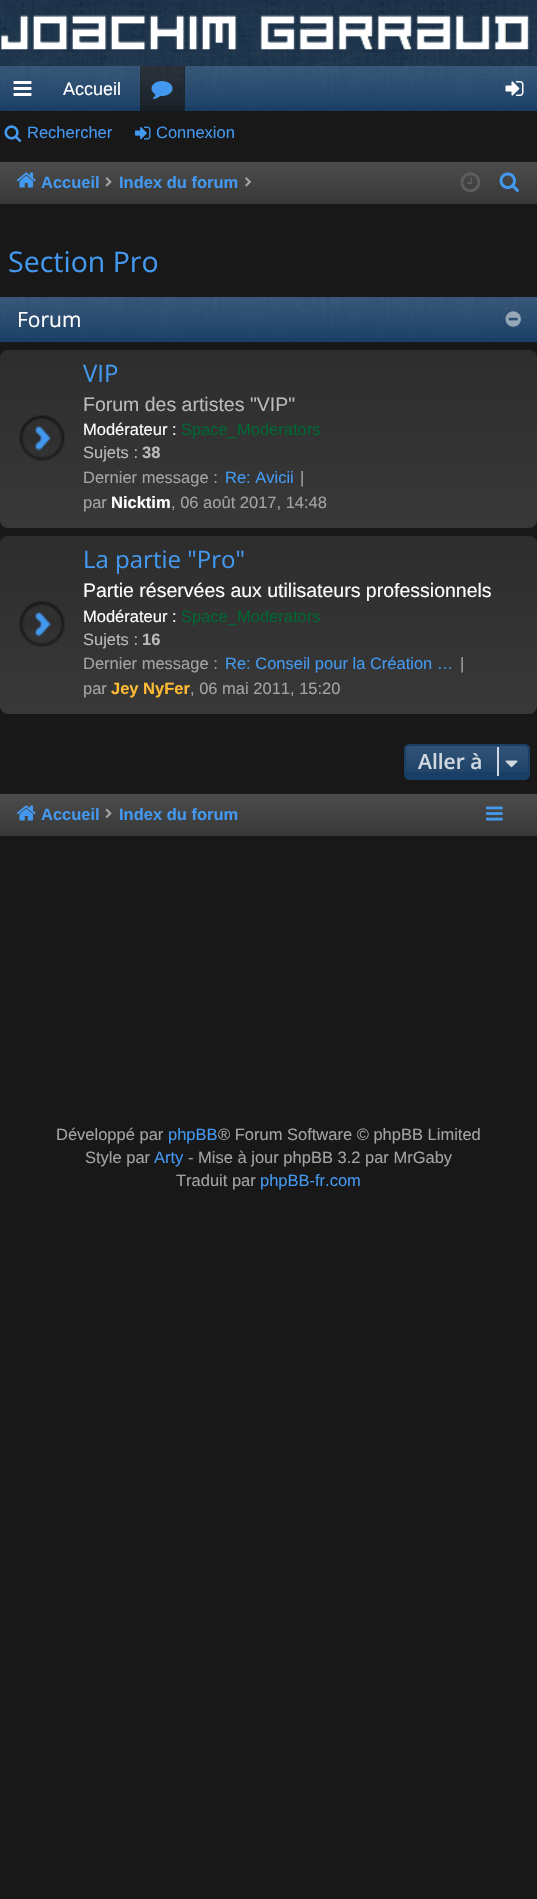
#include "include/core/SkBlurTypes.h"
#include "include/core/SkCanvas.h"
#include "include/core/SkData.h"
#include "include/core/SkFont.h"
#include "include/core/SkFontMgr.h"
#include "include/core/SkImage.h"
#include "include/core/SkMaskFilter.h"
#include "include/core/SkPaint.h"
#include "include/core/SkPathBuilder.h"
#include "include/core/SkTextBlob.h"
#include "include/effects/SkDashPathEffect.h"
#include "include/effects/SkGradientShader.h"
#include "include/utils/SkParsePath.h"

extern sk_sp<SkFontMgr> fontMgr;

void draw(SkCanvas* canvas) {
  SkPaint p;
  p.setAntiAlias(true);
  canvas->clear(SkColorSetRGB(24, 24, 24));
  p.setColor(SkColorSetRGB(26, 58, 92));
  canvas->drawRect(SkRect::MakeLTRB(0, 0, 537, 66), p);
  canvas->drawImageRect(SkImages::DeferredFromEncodedData(SkData::MakeFromFileName("images/1.png")), SkRect::MakeLTRB(0, 0, 537, 66), SkSamplingOptions());
  canvas->drawImageRect(SkImages::DeferredFromEncodedData(SkData::MakeFromFileName("images/2.png")), SkRect::MakeLTRB(1, 15, 530, 50), SkSamplingOptions());
  p.setColor(SkColorSetRGB(26, 63, 102));
  canvas->drawRect(SkRect::MakeLTRB(0, 66, 537, 111), p);
  canvas->drawImageRect(SkImages::DeferredFromEncodedData(SkData::MakeFromFileName("images/3.png")), SkRect::MakeLTRB(0, 66, 537, 107), SkSamplingOptions());
  canvas->drawImageRect(SkImages::DeferredFromEncodedData(SkData::MakeFromFileName("images/4.png")), SkRect::MakeLTRB(13, 81, 32, 96), SkSamplingOptions());
  p.setColor(SkColorSetRGB(24, 32, 40));
  canvas->drawRect(SkRect::MakeLTRB(140, 66, 185, 111), p);
  canvas->drawImageRect(SkImages::DeferredFromEncodedData(SkData::MakeFromFileName("images/5.png")), SkRect::MakeLTRB(139, 66, 185, 106), SkSamplingOptions());
  canvas->drawImageRect(SkImages::DeferredFromEncodedData(SkData::MakeFromFileName("images/6.png")), SkRect::MakeLTRB(151, 81, 173, 99), SkSamplingOptions());
  canvas->drawImageRect(SkImages::DeferredFromEncodedData(SkData::MakeFromFileName("images/7.png")), SkRect::MakeLTRB(505, 81, 524, 96), SkSamplingOptions());
  canvas->drawImageRect(SkImages::DeferredFromEncodedData(SkData::MakeFromFileName("images/8.png")), SkRect::MakeLTRB(4, 125, 22, 142), SkSamplingOptions());
  canvas->drawImageRect(SkImages::DeferredFromEncodedData(SkData::MakeFromFileName("images/9.png")), SkRect::MakeLTRB(135, 126, 151, 140), SkSamplingOptions());
  {
    const SkColor colors[] = {SkColorSetRGB(76, 76, 76), SkColorSetRGB(56, 56, 56)};
    const float stops[] = {0, 1};
    const SkPoint ends[] = {{269, 162}, {269, 204}};
    p.setShader(SkGradientShader::MakeLinear(ends, colors, stops, 2, SkTileMode::kClamp));
    p.setAlpha(255);
  }
  canvas->drawRect(SkRect::MakeLTRB(0, 162, 537, 204), p);
  canvas->drawImageRect(SkImages::DeferredFromEncodedData(SkData::MakeFromFileName("images/10.png")), SkRect::MakeLTRB(16, 172, 36, 188), SkSamplingOptions());
  canvas->drawImageRect(SkImages::DeferredFromEncodedData(SkData::MakeFromFileName("images/11.png")), SkRect::MakeLTRB(105, 177, 112, 187), SkSamplingOptions());
  canvas->drawImageRect(SkImages::DeferredFromEncodedData(SkData::MakeFromFileName("images/12.png")), SkRect::MakeLTRB(245, 177, 251, 187), SkSamplingOptions());
  canvas->drawImageRect(SkImages::DeferredFromEncodedData(SkData::MakeFromFileName("images/13.png")), SkRect::MakeLTRB(460, 172, 481, 193), SkSamplingOptions());
  canvas->drawImageRect(SkImages::DeferredFromEncodedData(SkData::MakeFromFileName("images/14.png")), SkRect::MakeLTRB(499, 172, 519, 192), SkSamplingOptions());
  p.setShader(nullptr);
  p.setColor(SkColorSetRGB(26, 63, 102));
  canvas->drawRect(SkRect::MakeLTRB(0, 297, 537, 342), p);
  canvas->drawImageRect(SkImages::DeferredFromEncodedData(SkData::MakeFromFileName("images/15.png")), SkRect::MakeLTRB(0, 297, 537, 338), SkSamplingOptions());
  canvas->drawImageRect(SkImages::DeferredFromEncodedData(SkData::MakeFromFileName("images/16.png")), SkRect::MakeLTRB(505, 311, 521, 327), SkSamplingOptions());
  p.setColor(SkColorSetRGB(56, 56, 56));
  canvas->drawRoundRect(SkRect::MakeLTRB(0, 350, 537, 528), 8, 8, p);
  {
    const SkColor colors[] = {SkColorSetARGB(51, 0, 0, 0), SkColorSetARGB(0, 0, 0, 0)};
    const float stops[] = {0, 1};
    const SkPoint ends[] = {{269, 349}, {269, 528}};
    p.setShader(SkGradientShader::MakeLinear(ends, colors, stops, 2, SkTileMode::kClamp));
    p.setAlpha(255);
  }
  canvas->drawRoundRect(SkRect::MakeLTRB(0, 350, 537, 528), 8, 8, p);
  canvas->drawImageRect(SkImages::DeferredFromEncodedData(SkData::MakeFromFileName("images/17.png")), SkRect::MakeLTRB(19, 415, 65, 461), SkSamplingOptions());
  p.setShader(nullptr);
  p.setColor(SkColorSetRGB(56, 56, 56));
  canvas->drawRoundRect(SkRect::MakeLTRB(0, 536, 537, 714), 8, 8, p);
  {
    const SkColor colors[] = {SkColorSetARGB(51, 0, 0, 0), SkColorSetARGB(0, 0, 0, 0)};
    const float stops[] = {0, 1};
    const SkPoint ends[] = {{269, 536}, {269, 714}};
    p.setShader(SkGradientShader::MakeLinear(ends, colors, stops, 2, SkTileMode::kClamp));
    p.setAlpha(255);
  }
  canvas->drawRoundRect(SkRect::MakeLTRB(0, 536, 537, 714), 8, 8, p);
  canvas->drawImageRect(SkImages::DeferredFromEncodedData(SkData::MakeFromFileName("images/18.png")), SkRect::MakeLTRB(19, 601, 65, 647), SkSamplingOptions());
  p.setShader(nullptr);
  p.setColor(SkColorSetRGB(26, 63, 102));
  canvas->drawRoundRect(SkRect::MakeLTRB(404, 744, 530, 780), 6, 6, p);
  {
    const SkColor colors[] = {SkColorSetARGB(26, 255, 255, 255), SkColorSetARGB(0, 255, 255, 255)};
    const float stops[] = {0, 1};
    const SkPoint ends[] = {{467, 746}, {467, 779}};
    p.setShader(SkGradientShader::MakeLinear(ends, colors, stops, 2, SkTileMode::kClamp));
    p.setAlpha(255);
  }
  canvas->drawRect(SkRect::MakeLTRB(404, 746, 530, 772), p);
  p.setStyle(SkPaint::kStroke_Style);
  p.setStrokeWidth(2);
  p.setShader(nullptr);
  p.setColor(SkColorSetRGB(26, 63, 102));
  canvas->drawRoundRect(SkRect::MakeLTRB(405, 745, 529, 779), 5, 5, p);
  p.setStyle(SkPaint::kFill_Style);
  p.setColor(SkColorSetRGB(209, 217, 224));
  canvas->drawRect(SkRect::MakeLTRB(497, 747, 499, 776), p);
  canvas->drawImageRect(SkImages::DeferredFromEncodedData(SkData::MakeFromFileName("images/19.png")), SkRect::MakeLTRB(505, 760, 518, 768), SkSamplingOptions());
  {
    const SkColor colors[] = {SkColorSetRGB(76, 76, 76), SkColorSetRGB(56, 56, 56)};
    const float stops[] = {0, 1};
    const SkPoint ends[] = {{269, 794}, {269, 836}};
    p.setShader(SkGradientShader::MakeLinear(ends, colors, stops, 2, SkTileMode::kClamp));
    p.setAlpha(255);
  }
  canvas->drawRect(SkRect::MakeLTRB(0, 794, 537, 836), p);
  canvas->drawImageRect(SkImages::DeferredFromEncodedData(SkData::MakeFromFileName("images/20.png")), SkRect::MakeLTRB(16, 805, 36, 821), SkSamplingOptions());
  canvas->drawImageRect(SkImages::DeferredFromEncodedData(SkData::MakeFromFileName("images/21.png")), SkRect::MakeLTRB(105, 808, 112, 818), SkSamplingOptions());
  canvas->drawImageRect(SkImages::DeferredFromEncodedData(SkData::MakeFromFileName("images/22.png")), SkRect::MakeLTRB(486, 806, 503, 821), SkSamplingOptions());
  SkFont font1(fontMgr->matchFamilyStyle("Liberation Sans", SkFontStyle::Normal()), 18);
  font1.setSubpixel(true);
  p.setShader(nullptr);
  p.setColor(SK_ColorWHITE);
  canvas->drawString("Accueil", 63, 95, font1, p);
  SkFont font2(fontMgr->matchFamilyStyle("Liberation Sans", SkFontStyle::Normal()), 16.5f);
  font2.setSubpixel(true);
  p.setColor(SkColorSetRGB(67, 152, 239));
  canvas->drawString("Rechercher", 27, 138, font2, p);
  canvas->drawString("Connexion", 156, 138, font2, p);
  SkFont font3(fontMgr->matchFamilyStyle("Liberation Sans", SkFontStyle::Bold()), 16.5f);
  font3.setSubpixel(true);
  canvas->drawString("Accueil", 41, 188, font3, p);
  canvas->drawString("Index du forum", 119, 188, font3, p);
  SkFont font4(fontMgr->matchFamilyStyle("Open Sans", SkFontStyle::Normal()), 28.5f);
  font4.setSubpixel(true);
  canvas->drawString("Section Pro", 8, 272, font4, p);
  SkFont font5(fontMgr->matchFamilyStyle("Open Sans", SkFontStyle::Normal()), 21);
  font5.setSubpixel(true);
  p.setColor(SK_ColorWHITE);
  canvas->drawString("Forum", 17, 327, font5, p);
  SkFont font6(fontMgr->matchFamilyStyle("Open Sans", SkFontStyle::Normal()), 24);
  font6.setSubpixel(true);
  p.setColor(SkColorSetRGB(67, 152, 239));
  canvas->drawString("VIP", 83, 382, font6, p);
  SkFont font7(fontMgr->matchFamilyStyle("Liberation Sans", SkFontStyle::Normal()), 19.5f);
  font7.setSubpixel(true);
  p.setColor(SkColorSetRGB(187, 187, 187));
  canvas->drawString("Forum des artistes \"VIP\"", 83, 411, font7, p);
  p.setColor(SK_ColorWHITE);
  canvas->drawString("Modérateur :", 83, 435, font2, p);
  p.setColor(SkColorSetRGB(0, 102, 51));
  canvas->drawString("Space_Moderators", 181, 435, font2, p);
  p.setColor(SkColorSetRGB(187, 187, 187));
  canvas->drawString("Sujets :", 83, 458, font2, p);
  canvas->drawString("38", 142, 458, font3, p);
  p.setColor(SkColorSetRGB(163, 163, 163));
  canvas->drawString("Dernier message :", 83, 483, font2, p);
  p.setColor(SkColorSetRGB(67, 152, 239));
  canvas->drawString("Re: Avicii", 225, 483, font2, p);
  p.setColor(SkColorSetRGB(163, 163, 163));
  canvas->drawString("|", 300, 483, font2, p);
  canvas->drawString("par", 83, 508, font2, p);
  p.setColor(SK_ColorWHITE);
  canvas->drawString("Nicktim", 111, 508, font3, p);
  p.setColor(SkColorSetRGB(163, 163, 163));
  canvas->drawString(", 06 août 2017, 14:48", 171, 508, font2, p);
  p.setColor(SkColorSetRGB(67, 152, 239));
  canvas->drawString("La partie \"Pro\"", 83, 568, font6, p);
  p.setColor(SK_ColorWHITE);
  canvas->drawString("Partie réservées aux utilisateurs professionnels", 83, 597, font7, p);
  canvas->drawString("Modérateur :", 83, 622, font2, p);
  p.setColor(SkColorSetRGB(0, 102, 51));
  canvas->drawString("Space_Moderators", 181, 622, font2, p);
  p.setColor(SkColorSetRGB(187, 187, 187));
  canvas->drawString("Sujets :", 83, 645, font2, p);
  canvas->drawString("16", 142, 645, font3, p);
  p.setColor(SkColorSetRGB(163, 163, 163));
  canvas->drawString("Dernier message :", 83, 669, font2, p);
  p.setColor(SkColorSetRGB(67, 152, 239));
  canvas->drawString("Re: Conseil pour la Création …", 225, 669, font2, p);
  p.setColor(SkColorSetRGB(163, 163, 163));
  canvas->drawString("|", 460, 669, font2, p);
  canvas->drawString("par", 83, 694, font2, p);
  p.setColor(SkColorSetRGB(255, 187, 51));
  canvas->drawString("Jey NyFer", 111, 694, font3, p);
  p.setColor(SkColorSetRGB(163, 163, 163));
  canvas->drawString(", 06 mai 2011, 15:20", 190, 694, font2, p);
  SkFont font8(fontMgr->matchFamilyStyle("Open Sans", SkFontStyle(600, SkFontStyle::kNormal_Width, SkFontStyle::kUpright_Slant)), 21);
  font8.setSubpixel(true);
  p.setColor(SkColorSetRGB(209, 217, 224));
  canvas->drawString("Aller à", 418, 769, font8, p);
  p.setColor(SkColorSetRGB(67, 152, 239));
  canvas->drawString("Accueil", 41, 820, font3, p);
  canvas->drawString("Index du forum", 119, 820, font3, p);
  p.setColor(SkColorSetRGB(163, 163, 163));
  canvas->drawString("Développé par", 56, 1140, font2, p);
  p.setColor(SkColorSetRGB(67, 152, 239));
  canvas->drawString("phpBB", 168, 1140, font2, p);
  p.setColor(SkColorSetRGB(163, 163, 163));
  canvas->drawString("® Forum Software © phpBB Limited", 218, 1140, font2, p);
  canvas->drawString("Style par", 85, 1163, font2, p);
  p.setColor(SkColorSetRGB(67, 152, 239));
  canvas->drawString("Arty", 154, 1163, font2, p);
  p.setColor(SkColorSetRGB(163, 163, 163));
  canvas->drawString("- Mise à jour phpBB 3.2 par MrGaby", 188, 1163, font2, p);
  canvas->drawString("Traduit par", 176, 1186, font2, p);
  p.setColor(SkColorSetRGB(67, 152, 239));
  canvas->drawString("phpBB-fr.com", 260, 1186, font2, p);
}
